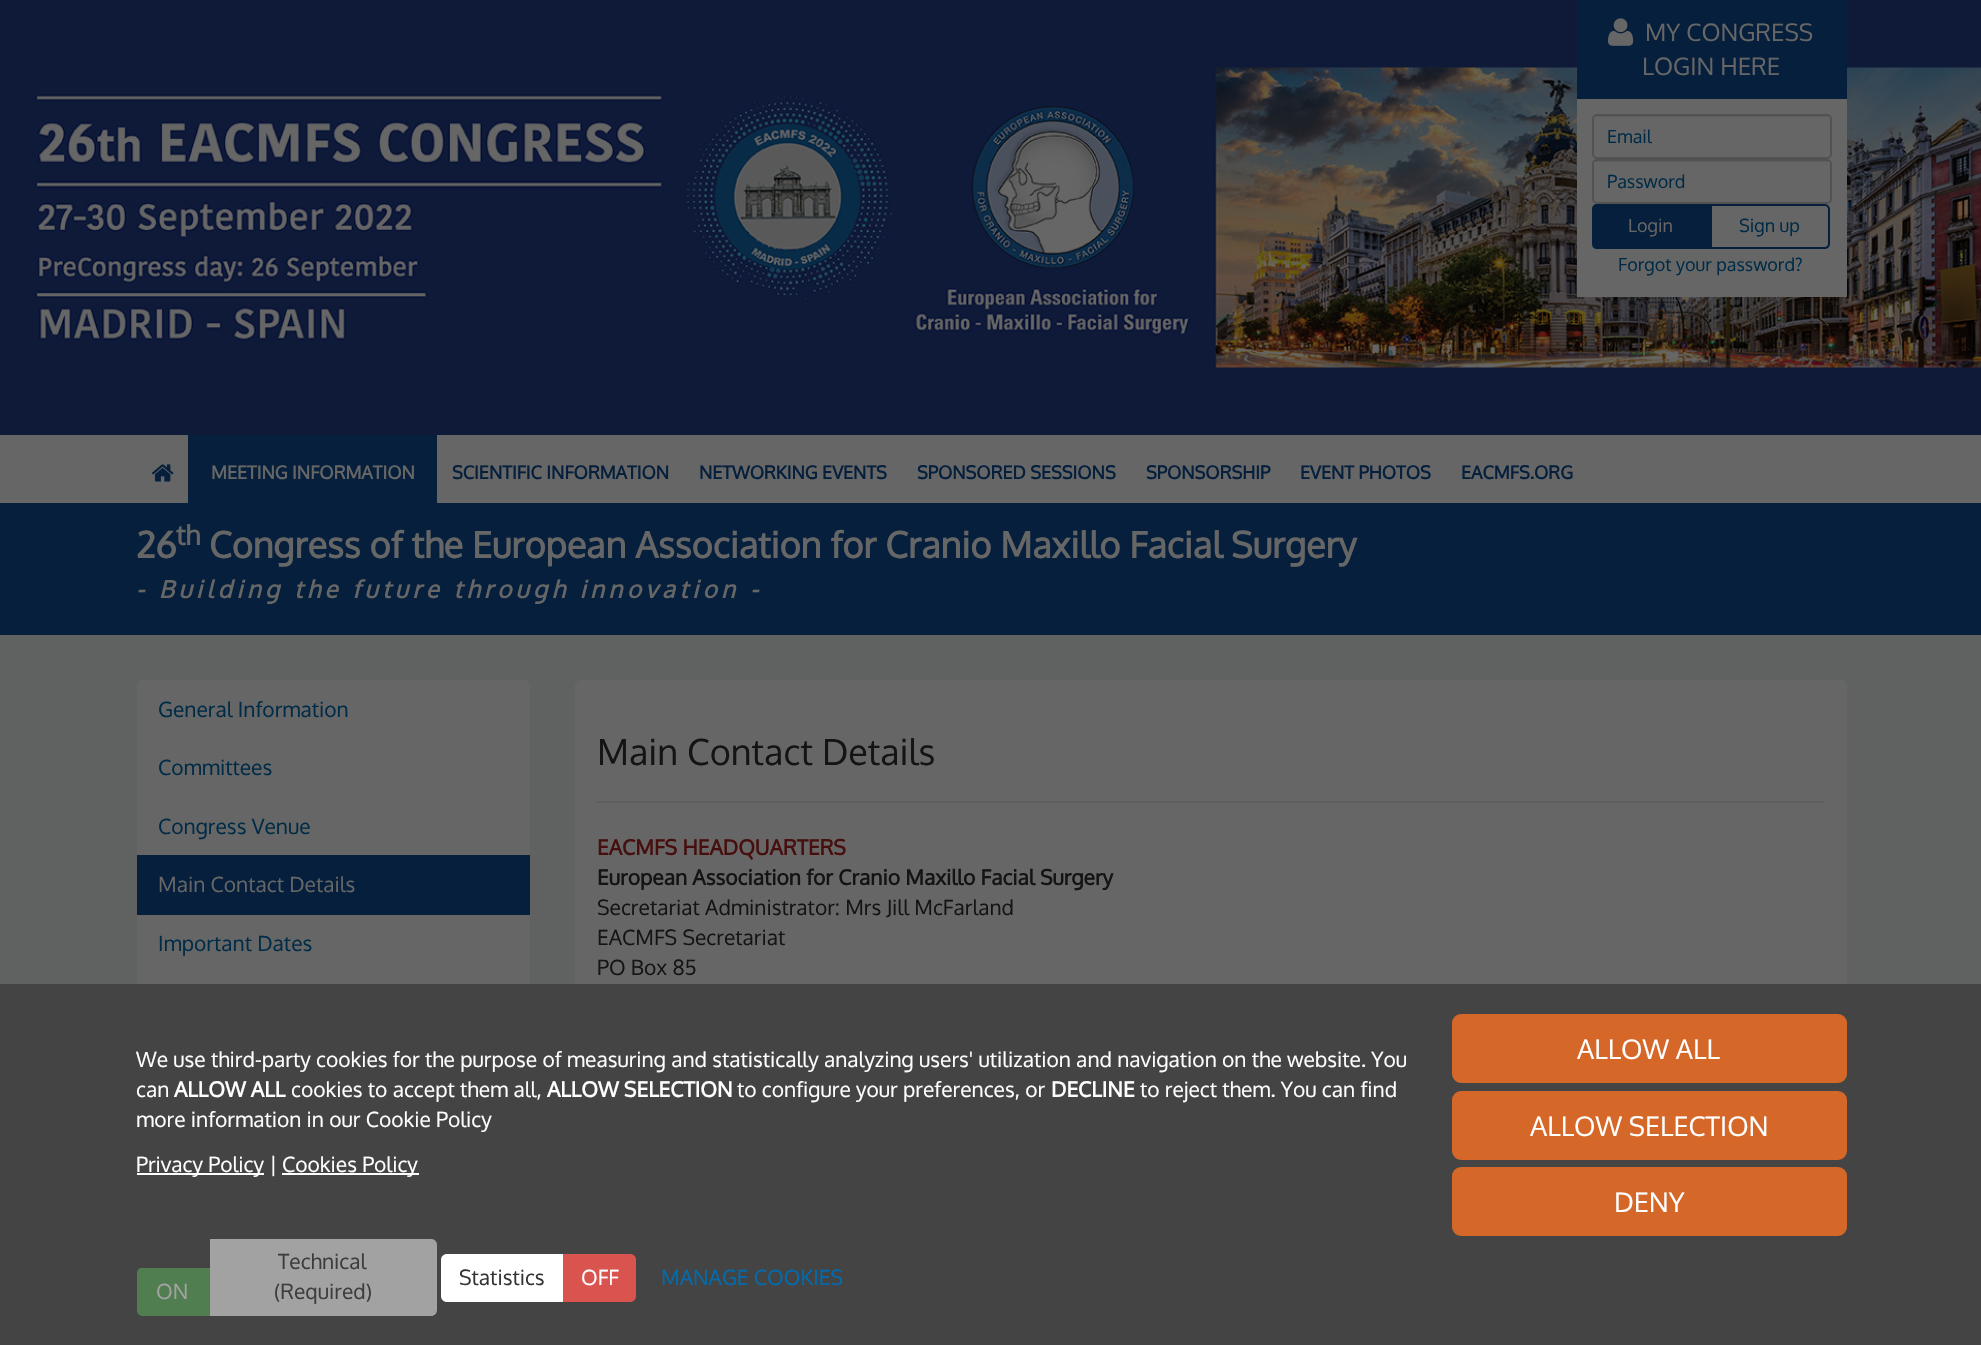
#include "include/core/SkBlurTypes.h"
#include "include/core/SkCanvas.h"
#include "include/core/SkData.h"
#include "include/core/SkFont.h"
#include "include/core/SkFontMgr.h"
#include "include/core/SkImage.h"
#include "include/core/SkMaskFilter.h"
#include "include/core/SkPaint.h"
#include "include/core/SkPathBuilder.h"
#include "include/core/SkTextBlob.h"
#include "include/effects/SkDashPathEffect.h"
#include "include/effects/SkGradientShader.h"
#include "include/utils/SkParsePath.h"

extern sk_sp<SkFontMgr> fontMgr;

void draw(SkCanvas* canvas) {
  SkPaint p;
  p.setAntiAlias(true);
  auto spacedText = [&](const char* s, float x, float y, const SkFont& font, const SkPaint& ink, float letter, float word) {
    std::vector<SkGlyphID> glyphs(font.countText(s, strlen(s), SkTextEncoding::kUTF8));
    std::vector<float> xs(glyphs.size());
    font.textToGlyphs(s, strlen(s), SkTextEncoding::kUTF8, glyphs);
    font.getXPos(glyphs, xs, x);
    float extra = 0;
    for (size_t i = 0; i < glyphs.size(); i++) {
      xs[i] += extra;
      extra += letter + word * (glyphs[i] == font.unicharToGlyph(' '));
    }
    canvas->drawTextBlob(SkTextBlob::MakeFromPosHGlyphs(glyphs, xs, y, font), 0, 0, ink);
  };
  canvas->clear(SkColorSetRGB(96, 97, 97));
  p.setColor(SkColorSetRGB(15, 26, 57));
  canvas->drawRect(SkRect::MakeLTRB(0, 0, 1981, 435), p);
  canvas->drawImageRect(SkImages::DeferredFromEncodedData(SkData::MakeFromFileName("images/1.png")), SkRect::MakeLTRB(35, 67, 1981, 368), SkSamplingOptions());
  p.setColor(SkColorSetRGB(5, 31, 60));
  canvas->drawRect(SkRect::MakeLTRB(1577, 0, 1847, 99), p);
  canvas->drawImageRect(SkImages::DeferredFromEncodedData(SkData::MakeFromFileName("images/2.png")), SkRect::MakeLTRB(1608, 18, 1634, 46), SkSamplingOptions());
  p.setColor(SkColorSetRGB(102, 102, 102));
  canvas->drawRect(SkRect::MakeLTRB(1577, 99, 1847, 297), p);
  p.setColor(SkColorSetRGB(94, 94, 94));
  canvas->drawPath(SkPathBuilder().moveTo(1596, 117).lineTo(1828, 117).lineTo(1830, 118).lineTo(1830, 120).cubicTo(1830, 118, 1829, 116, 1827, 116).lineTo(1596, 116).cubicTo(1594, 116, 1593, 118, 1593, 120).cubicTo(1593, 118, 1594, 117, 1596, 117).close().detach(), p);
  p.setStyle(SkPaint::kStroke_Style);
  p.setStrokeWidth(2);
  p.setColor(SkColorSetRGB(82, 82, 82));
  canvas->drawRoundRect(SkRect::MakeLTRB(1593, 115, 1831, 158), 4, 4, p);
  p.setStyle(SkPaint::kFill_Style);
  p.setColor(SkColorSetRGB(94, 94, 94));
  canvas->drawPath(SkPathBuilder().moveTo(1596, 162).lineTo(1828, 162).lineTo(1830, 163).lineTo(1830, 165).cubicTo(1830, 163, 1829, 161, 1827, 161).lineTo(1596, 161).cubicTo(1594, 161, 1593, 163, 1593, 165).cubicTo(1593, 163, 1594, 162, 1596, 162).close().detach(), p);
  p.setStyle(SkPaint::kStroke_Style);
  p.setColor(SkColorSetRGB(82, 82, 82));
  canvas->drawRoundRect(SkRect::MakeLTRB(1593, 160, 1831, 203), 4, 4, p);
  p.setStyle(SkPaint::kFill_Style);
  p.setColor(SkColorSetRGB(5, 31, 60));
  canvas->drawPath(SkPathBuilder().moveTo(1597, 204).lineTo(1712, 204).lineTo(1712, 249).lineTo(1597, 249).cubicTo(1594, 249, 1592, 247, 1592, 244).lineTo(1592, 209).cubicTo(1592, 206, 1594, 204, 1597, 204).close().detach(), p);
  p.setColor(SkColorSetRGB(102, 102, 102));
  canvas->drawPath(SkPathBuilder().moveTo(1711, 205).lineTo(1825, 205).cubicTo(1827, 205, 1829, 207, 1829, 209).lineTo(1829, 244).cubicTo(1829, 246, 1827, 248, 1825, 248).lineTo(1711, 248).close().detach(), p);
  p.setStyle(SkPaint::kStroke_Style);
  p.setColor(SkColorSetRGB(5, 31, 60));
  canvas->drawPath(SkPathBuilder().moveTo(1711, 205).lineTo(1825, 205).cubicTo(1827, 205, 1829, 207, 1829, 209).lineTo(1829, 244).cubicTo(1829, 246, 1827, 248, 1825, 248).lineTo(1711, 248).close().detach(), p);
  p.setStyle(SkPaint::kFill_Style);
  p.setColor(SkColorSetRGB(102, 102, 102));
  canvas->drawRect(SkRect::MakeLTRB(0, 435, 1981, 503), p);
  canvas->drawImageRect(SkImages::DeferredFromEncodedData(SkData::MakeFromFileName("images/3.png")), SkRect::MakeLTRB(151, 464, 174, 482), SkSamplingOptions());
  p.setColor(SkColorSetRGB(5, 31, 60));
  canvas->drawRect(SkRect::MakeLTRB(188, 435, 437, 503), p);
  canvas->drawRect(SkRect::MakeLTRB(0, 503, 1981, 635), p);
  p.setColor(SkColorSetRGB(102, 102, 102));
  canvas->drawPath(SkPathBuilder().moveTo(143, 680).lineTo(524, 680).cubicTo(527.5f, 680, 530, 682.5f, 530, 686).lineTo(530, 740).lineTo(137, 740).lineTo(137, 686).cubicTo(137, 682.5f, 139.5f, 680, 143, 680).close().detach(), p);
  canvas->drawRect(SkRect::MakeLTRB(137, 740, 530, 855), p);
  p.setColor(SkColorSetRGB(5, 31, 60));
  canvas->drawRect(SkRect::MakeLTRB(137, 855, 530, 915), p);
  p.setColor(SkColorSetRGB(102, 102, 102));
  canvas->drawRect(SkRect::MakeLTRB(137, 915, 530, 984), p);
  canvas->drawRoundRect(SkRect::MakeLTRB(575, 680, 1847, 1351), 6, 6, p);
  p.setColor(SkColorSetRGB(95, 95, 95));
  canvas->drawRect(SkRect::MakeLTRB(597, 801, 1824, 803), p);
  p.setColor(SkColorSetRGB(68, 68, 68));
  canvas->drawRect(SkRect::MakeLTRB(0, 984, 1981, 1345), p);
  p.setColor(SK_ColorWHITE);
  canvas->drawRect(SkRect::MakeLTRB(137, 1173, 264, 1175), p);
  canvas->drawRect(SkRect::MakeLTRB(282, 1173, 419, 1175), p);
  p.setColor(SkColorSetRGB(80, 126, 80));
  canvas->drawPath(SkPathBuilder().moveTo(142, 1268).lineTo(210, 1268).lineTo(210, 1316).lineTo(143, 1316).cubicTo(139.5f, 1316, 137, 1313.5f, 137, 1310).lineTo(137, 1273).cubicTo(137, 1270, 139, 1268, 142, 1268).close().detach(), p);
  canvas->save();
  canvas->clipPath(SkPathBuilder().moveTo(143, 1239).lineTo(431, 1239).cubicTo(434.5f, 1239, 437, 1241.5f, 437, 1245).lineTo(437, 1310).cubicTo(437, 1313.5f, 434.5f, 1316, 431, 1316).lineTo(143, 1316).cubicTo(139.5f, 1316, 137, 1313.5f, 137, 1310).lineTo(137, 1245).cubicTo(137, 1241.5f, 139.5f, 1239, 143, 1239).close().detach(), true);
  p.setColor(SkColorSetRGB(162, 162, 162));
  canvas->drawPath(SkPathBuilder().moveTo(210, 1238).lineTo(432, 1238).cubicTo(435, 1238, 437, 1240, 437, 1243).lineTo(437, 1311).cubicTo(437, 1314, 435, 1316, 432, 1316).lineTo(210, 1316).close().detach(), p);
  canvas->restore();
  p.setColor(SK_ColorWHITE);
  canvas->drawPath(SkPathBuilder().moveTo(447, 1254).lineTo(563, 1254).lineTo(563, 1302).lineTo(447, 1302).cubicTo(443.5f, 1302, 441, 1299.5f, 441, 1296).lineTo(441, 1260).cubicTo(441, 1256.5f, 443.5f, 1254, 447, 1254).close().detach(), p);
  p.setColor(SkColorSetRGB(217, 83, 79));
  canvas->drawPath(SkPathBuilder().moveTo(563, 1254).lineTo(630, 1254).cubicTo(633.5f, 1254, 636, 1256.5f, 636, 1260).lineTo(636, 1296).cubicTo(636, 1299.5f, 633.5f, 1302, 630, 1302).lineTo(563, 1302).close().detach(), p);
  p.setColor(SkColorSetRGB(213, 104, 40));
  canvas->drawRoundRect(SkRect::MakeLTRB(1453, 1015, 1846, 1082), 8, 8, p);
  p.setStyle(SkPaint::kStroke_Style);
  canvas->drawRoundRect(SkRect::MakeLTRB(1453, 1015, 1846, 1082), 8, 8, p);
  p.setStyle(SkPaint::kFill_Style);
  canvas->drawRoundRect(SkRect::MakeLTRB(1453, 1092, 1846, 1159), 8, 8, p);
  p.setStyle(SkPaint::kStroke_Style);
  canvas->drawRoundRect(SkRect::MakeLTRB(1453, 1092, 1846, 1159), 8, 8, p);
  p.setStyle(SkPaint::kFill_Style);
  canvas->drawRoundRect(SkRect::MakeLTRB(1453, 1168, 1846, 1235), 8, 8, p);
  p.setStyle(SkPaint::kStroke_Style);
  canvas->drawRoundRect(SkRect::MakeLTRB(1453, 1168, 1846, 1235), 8, 8, p);
  SkFont font1(fontMgr->matchFamilyStyle("Oxygen", SkFontStyle::Normal()), 24);
  font1.setSubpixel(true);
  p.setStyle(SkPaint::kFill_Style);
  p.setColor(SkColorSetRGB(102, 102, 102));
  canvas->drawString("MY CONGRESS", 1645, 41, font1, p);
  canvas->drawString("LOGIN HERE", 1642, 75, font1, p);
  SkFont font2(fontMgr->matchFamilyStyle("Oxygen", SkFontStyle::Normal()), 18);
  font2.setSubpixel(true);
  p.setColor(SkColorSetRGB(0, 43, 70));
  canvas->drawString("Email", 1607, 143, font2, p);
  canvas->drawString("Password", 1607, 188, font2, p);
  p.setColor(SkColorSetRGB(102, 102, 102));
  canvas->drawString("Login", 1628, 232, font2, p);
  p.setColor(SkColorSetRGB(0, 43, 70));
  canvas->drawString("Sign up", 1739, 232, font2, p);
  canvas->drawString("Forgot your password?", 1618, 271, font2, p);
  SkFont font3(fontMgr->matchFamilyStyle("Oxygen", SkFontStyle::Bold()), 18);
  font3.setSubpixel(true);
  p.setColor(SkColorSetRGB(102, 102, 102));
  canvas->drawString("MEETING INFORMATION", 211, 479, font3, p);
  p.setColor(SkColorSetRGB(5, 31, 60));
  canvas->drawString("SCIENTIFIC INFORMATION", 452, 479, font3, p);
  canvas->drawString("NETWORKING EVENTS", 699, 479, font3, p);
  canvas->drawString("SPONSORED SESSIONS", 917, 479, font3, p);
  canvas->drawString("SPONSORSHIP", 1146, 479, font3, p);
  canvas->drawString("EVENT PHOTOS", 1300, 479, font3, p);
  canvas->drawString("EACMFS.ORG", 1461, 479, font3, p);
  SkFont font4(fontMgr->matchFamilyStyle("Oxygen", SkFontStyle::Bold()), 36);
  font4.setSubpixel(true);
  p.setColor(SkColorSetRGB(102, 102, 102));
  canvas->drawString("26", 136, 558, font4, p);
  SkFont font5(fontMgr->matchFamilyStyle("Oxygen", SkFontStyle::Bold()), 27);
  font5.setSubpixel(true);
  canvas->drawString("th", 176, 545, font5, p);
  canvas->drawString("Congress of the European Association for Cranio Maxillo Facial Surgery", 209, 558, font4, p);
  SkFont font6(fontMgr->matchFamilyStyle("Oxygen", SkFontStyle::BoldItalic()), 24);
  font6.setSubpixel(true);
  spacedText("- Building the future through innovation -", 136, 598, font6, p, 4.5f, 0);
  SkFont font7(fontMgr->matchFamilyStyle("Oxygen", SkFontStyle::Normal()), 21);
  font7.setSubpixel(true);
  p.setColor(SkColorSetRGB(0, 43, 70));
  canvas->drawString("General Information", 158, 717, font7, p);
  canvas->drawString("Committees", 158, 775, font7, p);
  canvas->drawString("Congress Venue", 158, 834, font7, p);
  p.setColor(SkColorSetRGB(102, 102, 102));
  canvas->drawString("Main Contact Details", 158, 892, font7, p);
  p.setColor(SkColorSetRGB(0, 43, 70));
  canvas->drawString("Important Dates", 158, 951, font7, p);
  SkFont font8(fontMgr->matchFamilyStyle("Oxygen", SkFontStyle::Normal()), 36);
  font8.setSubpixel(true);
  p.setColor(SkColorSetRGB(20, 20, 20));
  canvas->drawString("Main Contact Details", 597, 765, font8, p);
  SkFont font9(fontMgr->matchFamilyStyle("Oxygen", SkFontStyle::Bold()), 21);
  font9.setSubpixel(true);
  p.setColor(SkColorSetRGB(71, 14, 14));
  canvas->drawString("EACMFS HEADQUARTERS", 597, 855, font9, p);
  p.setColor(SkColorSetRGB(20, 20, 20));
  canvas->drawString("European Association for Cranio Maxillo Facial Surgery", 597, 885, font9, p);
  canvas->drawString("Secretariat Administrator: Mrs Jill McFarland", 597, 915, font7, p);
  canvas->drawString("EACMFS Secretariat", 597, 945, font7, p);
  canvas->drawString("PO Box 85", 597, 975, font7, p);
  p.setColor(SK_ColorWHITE);
  canvas->drawString("We use third-party cookies for the purpose of measuring and statistically analyzing users' utilization and navigation on the website. You", 136, 1067, font7, p);
  canvas->drawString("can", 136, 1097, font7, p);
  canvas->drawString("ALLOW ALL", 174, 1097, font9, p);
  canvas->drawString("cookies to accept them all,", 291, 1097, font7, p);
  canvas->drawString("ALLOW SELECTION", 547, 1097, font9, p);
  canvas->drawString("to configure your preferences, or", 737, 1097, font7, p);
  canvas->drawString("DECLINE", 1051, 1097, font9, p);
  canvas->drawString("to reject them. You can find", 1140, 1097, font7, p);
  canvas->drawString("more information in our Cookie Policy", 136, 1127, font7, p);
  canvas->drawString("Privacy Policy |", 136, 1172, font7, p);
  canvas->drawString("Cookies Policy", 282, 1172, font7, p);
  p.setColor(SkColorSetRGB(162, 162, 162));
  canvas->drawString("ON", 156, 1299, font7, p);
  p.setColor(SkColorSetRGB(60, 60, 60));
  canvas->drawString("Technical", 278, 1269, font7, p);
  canvas->drawString("(Required)", 274, 1299, font7, p);
  p.setColor(SkColorSetRGB(51, 51, 51));
  canvas->drawString("Statistics", 459, 1285, font7, p);
  p.setColor(SK_ColorWHITE);
  canvas->drawString("OFF", 581, 1285, font7, p);
  p.setColor(SkColorSetRGB(0, 108, 176));
  canvas->drawString("MANAGE COOKIES", 661, 1285, font7, p);
  SkFont font10(fontMgr->matchFamilyStyle("Oxygen", SkFontStyle::Normal()), 27);
  font10.setSubpixel(true);
  p.setColor(SK_ColorWHITE);
  canvas->drawString("ALLOW ALL", 1577, 1059, font10, p);
  canvas->drawString("ALLOW SELECTION", 1530, 1136, font10, p);
  canvas->drawString("DENY", 1614, 1212, font10, p);
}
